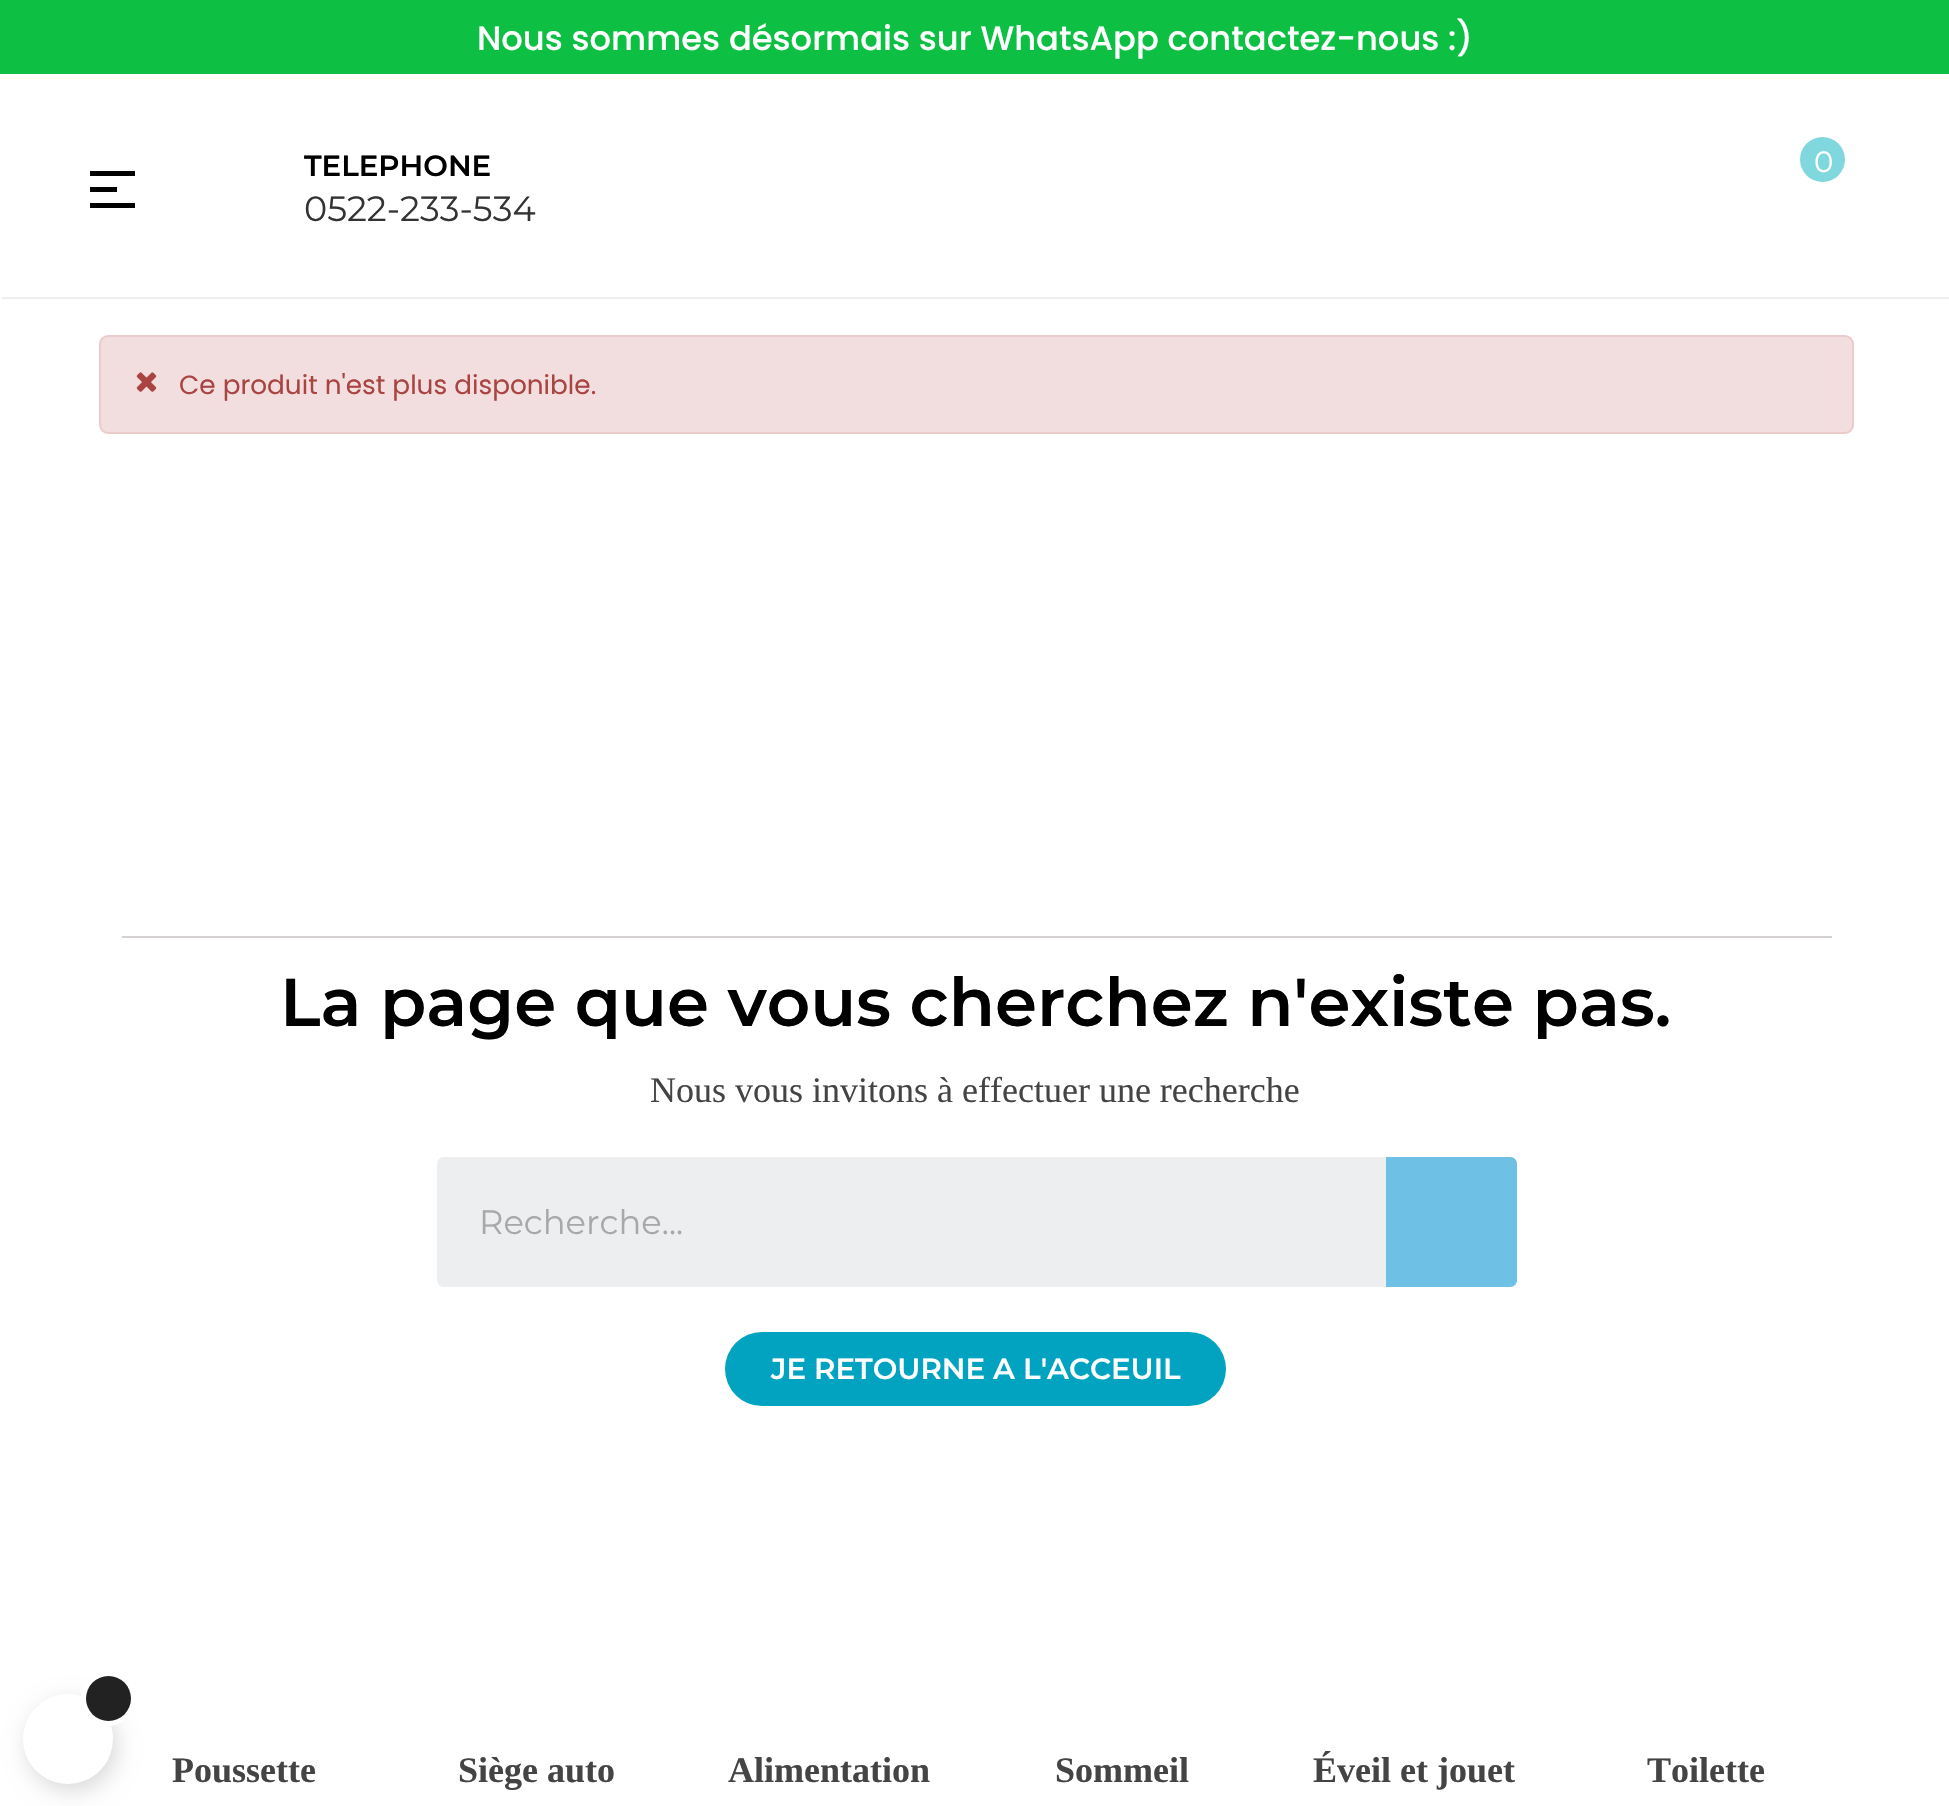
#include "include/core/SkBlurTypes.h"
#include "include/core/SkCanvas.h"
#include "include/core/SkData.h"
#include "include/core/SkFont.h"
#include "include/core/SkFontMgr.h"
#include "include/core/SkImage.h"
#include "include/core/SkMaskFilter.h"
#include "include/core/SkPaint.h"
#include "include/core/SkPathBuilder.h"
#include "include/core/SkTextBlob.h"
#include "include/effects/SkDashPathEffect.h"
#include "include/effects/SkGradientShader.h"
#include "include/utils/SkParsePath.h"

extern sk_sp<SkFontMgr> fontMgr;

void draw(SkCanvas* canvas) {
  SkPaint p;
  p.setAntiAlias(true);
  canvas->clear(SK_ColorWHITE);
  p.setColor(SkColorSetARGB(38, 0, 0, 0));
  p.setMaskFilter(SkMaskFilter::MakeBlur(kNormal_SkBlurStyle, 11));
  canvas->drawRoundRect(SkRect::MakeLTRB(27, 1701, 117, 1791), 45, 45, p);
  p.setMaskFilter(nullptr);
  p.setColor(SK_ColorWHITE);
  canvas->drawCircle(68, 1739, 45, p);
  p.setStyle(SkPaint::kStroke_Style);
  p.setStrokeWidth(5);
  canvas->drawCircle(108, 1699, 24.5f, p);
  p.setStyle(SkPaint::kFill_Style);
  p.setColor(SkColorSetRGB(34, 34, 34));
  canvas->drawCircle(108.5f, 1698.5f, 22.5f, p);
  p.setColor(SkColorSetRGB(13, 192, 67));
  canvas->drawRect(SkRect::MakeLTRB(0, 0, 1949, 74), p);
  p.setColor(SK_ColorBLACK);
  canvas->drawRect(SkRect::MakeLTRB(90, 171, 135, 176), p);
  canvas->drawRect(SkRect::MakeLTRB(90, 203, 135, 208), p);
  canvas->drawRect(SkRect::MakeLTRB(90, 187, 117, 192), p);
  p.setColor(SkColorSetRGB(128, 215, 221));
  canvas->drawCircle(1822.5f, 159.5f, 22.5f, p);
  p.setColor(SkColorSetRGB(238, 238, 238));
  canvas->drawRect(SkRect::MakeLTRB(2, 297, 1949, 299), p);
  p.setColor(SkColorSetRGB(242, 222, 222));
  canvas->drawRoundRect(SkRect::MakeLTRB(100, 336, 1853, 433), 8, 8, p);
  p.setStyle(SkPaint::kStroke_Style);
  p.setStrokeWidth(2);
  p.setColor(SkColorSetRGB(235, 204, 204));
  canvas->drawRoundRect(SkRect::MakeLTRB(100, 336, 1853, 433), 8, 8, p);
  canvas->drawImageRect(SkImages::DeferredFromEncodedData(SkData::MakeFromFileName("images/1.png")), SkRect::MakeLTRB(136, 372, 157, 392), SkSamplingOptions());
  p.setStyle(SkPaint::kFill_Style);
  p.setColor(SkColorSetRGB(213, 209, 209));
  canvas->drawRect(SkRect::MakeLTRB(122, 936, 1832, 938), p);
  p.setColor(SkColorSetRGB(236, 238, 239));
  canvas->drawRoundRect(SkRect::MakeLTRB(437, 1157, 1517, 1287), 7, 7, p);
  p.setColor(SkColorSetRGB(110, 193, 228));
  canvas->drawPath(SkPathBuilder().moveTo(1386, 1157).lineTo(1510, 1157).cubicTo(1514, 1157, 1517, 1160, 1517, 1164).lineTo(1517, 1280).cubicTo(1517, 1284, 1514, 1287, 1510, 1287).lineTo(1386, 1287).close().detach(), p);
  p.setColor(SkColorSetRGB(1, 163, 192));
  canvas->drawRoundRect(SkRect::MakeLTRB(725, 1332, 1226, 1406), 37, 37, p);
  SkFont font1(fontMgr->matchFamilyStyle("Poppins", SkFontStyle(500, SkFontStyle::kNormal_Width, SkFontStyle::kUpright_Slant)), 33.75f);
  font1.setSubpixel(true);
  p.setColor(SK_ColorWHITE);
  canvas->drawString("Nous sommes désormais sur WhatsApp contactez-nous :)", 477, 50, font1, p);
  SkFont font2(fontMgr->matchFamilyStyle("Montserrat", SkFontStyle(600, SkFontStyle::kNormal_Width, SkFontStyle::kUpright_Slant)), 29.25f);
  font2.setSubpixel(true);
  p.setColor(SK_ColorBLACK);
  canvas->drawString("TELEPHONE", 304, 176, font2, p);
  SkFont font3(fontMgr->matchFamilyStyle("Montserrat", SkFontStyle::Normal()), 35);
  font3.setSubpixel(true);
  p.setColor(SkColorSetRGB(51, 51, 51));
  canvas->drawString("0522-233-534", 304, 221, font3, p);
  SkFont font4(fontMgr->matchFamilyStyle("Montserrat", SkFontStyle::Normal()), 29.25f);
  font4.setSubpixel(true);
  p.setColor(SK_ColorWHITE);
  canvas->drawString("0", 1814, 172, font4, p);
  SkFont font5(fontMgr->matchFamilyStyle("Poppins", SkFontStyle::Normal()), 26.3f);
  font5.setSubpixel(true);
  p.setColor(SkColorSetRGB(169, 68, 66));
  canvas->drawString("Ce produit n'est plus disponible.", 179, 394, font5, p);
  SkFont font6(fontMgr->matchFamilyStyle("Montserrat", SkFontStyle(600, SkFontStyle::kNormal_Width, SkFontStyle::kUpright_Slant)), 67.5f);
  font6.setSubpixel(true);
  p.setColor(SK_ColorBLACK);
  canvas->drawString("La page que vous cherchez n'existe pas.", 280, 1026, font6, p);
  SkFont font7(fontMgr->matchFamilyStyle("Liberation Serif", SkFontStyle::Normal()), 36);
  font7.setSubpixel(true);
  p.setColor(SkColorSetRGB(68, 68, 68));
  canvas->drawString("Nous vous invitons à effectuer une recherche", 650, 1102, font7, p);
  SkFont font8(fontMgr->matchFamilyStyle("Montserrat", SkFontStyle::Normal()), 33.75f);
  font8.setSubpixel(true);
  p.setColor(SkColorSetRGB(168, 168, 169));
  canvas->drawString("Recherche...", 479, 1234, font8, p);
  p.setColor(SK_ColorWHITE);
  canvas->drawString("JE RETOURNE A L'ACCEUIL", 771, 1379, font2, p);
  SkFont font9(fontMgr->matchFamilyStyle("Liberation Serif", SkFontStyle::Bold()), 36);
  font9.setSubpixel(true);
  p.setColor(SkColorSetRGB(68, 68, 68));
  canvas->drawString("Poussette", 172, 1782, font9, p);
  canvas->drawString("Siège auto", 458, 1782, font9, p);
  canvas->drawString("Alimentation", 728, 1782, font9, p);
  canvas->drawString("Sommeil", 1055, 1782, font9, p);
  canvas->drawString("Éveil et jouet", 1313, 1782, font9, p);
  canvas->drawString("Toilette", 1647, 1782, font9, p);
}
